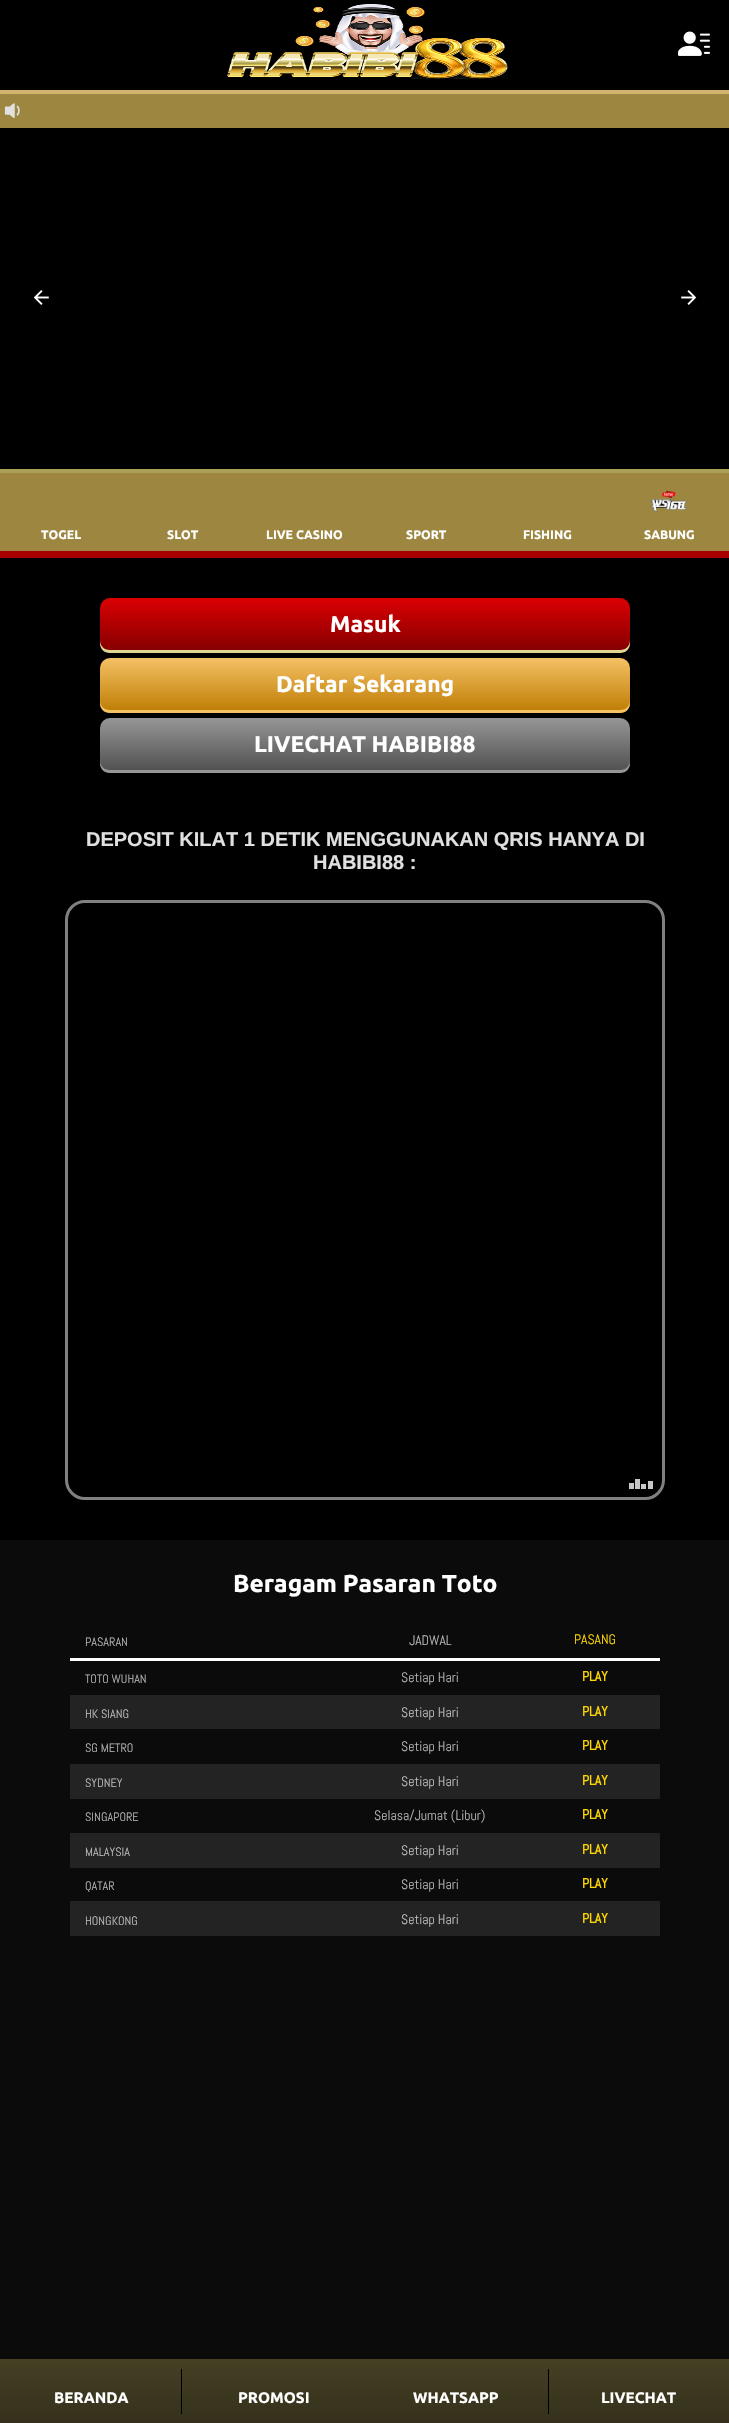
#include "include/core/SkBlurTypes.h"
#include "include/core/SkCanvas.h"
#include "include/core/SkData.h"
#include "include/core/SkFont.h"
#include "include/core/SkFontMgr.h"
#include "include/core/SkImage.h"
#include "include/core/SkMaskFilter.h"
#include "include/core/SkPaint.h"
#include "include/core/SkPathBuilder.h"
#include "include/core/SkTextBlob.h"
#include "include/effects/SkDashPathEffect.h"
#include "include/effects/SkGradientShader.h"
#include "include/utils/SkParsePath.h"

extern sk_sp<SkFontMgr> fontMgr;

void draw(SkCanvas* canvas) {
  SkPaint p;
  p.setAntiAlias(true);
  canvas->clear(SK_ColorBLACK);
  canvas->drawImageRect(SkImages::DeferredFromEncodedData(SkData::MakeFromFileName("images/1.png")), SkRect::MakeLTRB(227, 3, 508, 79), SkSamplingOptions());
  canvas->drawImageRect(SkImages::DeferredFromEncodedData(SkData::MakeFromFileName("images/2.png")), SkRect::MakeLTRB(678, 31, 710, 56), SkSamplingOptions());
  p.setColor(SkColorSetRGB(157, 134, 64));
  canvas->drawRect(SkRect::MakeLTRB(0, 94, 729, 128), p);
  p.setColor(SkColorSetRGB(211, 180, 111));
  canvas->drawRect(SkRect::MakeLTRB(0, 90, 729, 94), p);
  canvas->drawImageRect(SkImages::DeferredFromEncodedData(SkData::MakeFromFileName("images/3.png")), SkRect::MakeLTRB(4, 103, 20, 118), SkSamplingOptions());
  canvas->drawImageRect(SkImages::DeferredFromEncodedData(SkData::MakeFromFileName("images/4.png")), SkRect::MakeLTRB(33, 290, 49, 305), SkSamplingOptions());
  canvas->drawImageRect(SkImages::DeferredFromEncodedData(SkData::MakeFromFileName("images/5.png")), SkRect::MakeLTRB(681, 290, 697, 305), SkSamplingOptions());
  p.setColor(SkColorSetRGB(172, 160, 89));
  canvas->drawRect(SkRect::MakeLTRB(0, 469, 729, 473), p);
  p.setColor(SkColorSetRGB(168, 0, 0));
  canvas->drawRect(SkRect::MakeLTRB(0, 551, 729, 558), p);
  p.setColor(SkColorSetRGB(157, 134, 64));
  canvas->drawRect(SkRect::MakeLTRB(0, 473, 729, 551), p);
  canvas->drawImageRect(SkImages::DeferredFromEncodedData(SkData::MakeFromFileName("images/6.png")), SkRect::MakeLTRB(650, 490, 688, 512), SkSamplingOptions());
  {
    const SkColor colors[] = {SkColorSetRGB(219, 0, 2), SkColorSetRGB(130, 0, 1)};
    const float stops[] = {0, 1};
    const SkPoint ends[] = {{365, 598}, {365, 653}};
    p.setShader(SkGradientShader::MakeLinear(ends, colors, stops, 2, SkTileMode::kClamp));
    p.setAlpha(255);
  }
  canvas->drawRoundRect(SkRect::MakeLTRB(100, 598, 630, 653), 10, 10, p);
  p.setShader(nullptr);
  p.setColor(SkColorSetRGB(225, 215, 147));
  canvas->drawPath(SkPathBuilder().moveTo(100, 640).lineTo(100, 643).cubicTo(100, 649, 104, 653, 110, 653).lineTo(620, 653).cubicTo(626, 653, 630, 649, 630, 643).lineTo(630, 640).cubicTo(630, 646, 626, 650, 620, 650).lineTo(110, 650).cubicTo(104, 650, 100, 646, 100, 640).close().detach(), p);
  {
    const SkColor colors[] = {SkColorSetRGB(244, 193, 101), SkColorSetRGB(189, 123, 1)};
    const float stops[] = {0, 1};
    const SkPoint ends[] = {{365, 658}, {365, 713}};
    p.setShader(SkGradientShader::MakeLinear(ends, colors, stops, 2, SkTileMode::kClamp));
    p.setAlpha(255);
  }
  canvas->drawRoundRect(SkRect::MakeLTRB(100, 658, 630, 713), 10, 10, p);
  p.setShader(nullptr);
  p.setColor(SkColorSetRGB(244, 193, 101));
  canvas->drawPath(SkPathBuilder().moveTo(100, 700).lineTo(100, 703).cubicTo(100, 709, 104, 713, 110, 713).lineTo(620, 713).cubicTo(626, 713, 630, 709, 630, 703).lineTo(630, 700).cubicTo(630, 706, 626, 710, 620, 710).lineTo(110, 710).cubicTo(104, 710, 100, 706, 100, 700).close().detach(), p);
  {
    const SkColor colors[] = {SkColorSetRGB(78, 78, 78), SkColorSetRGB(150, 150, 150)};
    const float stops[] = {0, 1};
    const SkPoint ends[] = {{365, 773}, {365, 718}};
    p.setShader(SkGradientShader::MakeLinear(ends, colors, stops, 2, SkTileMode::kClamp));
    p.setAlpha(255);
  }
  canvas->drawRoundRect(SkRect::MakeLTRB(100, 718, 630, 773), 10, 10, p);
  p.setShader(nullptr);
  p.setColor(SkColorSetRGB(150, 150, 150));
  canvas->drawPath(SkPathBuilder().moveTo(100, 760).lineTo(100, 763).cubicTo(100, 769, 104, 773, 110, 773).lineTo(620, 773).cubicTo(626, 773, 630, 769, 630, 763).lineTo(630, 760).cubicTo(630, 766, 626, 770, 620, 770).lineTo(110, 770).cubicTo(104, 770, 100, 766, 100, 760).close().detach(), p);
  p.setStyle(SkPaint::kStroke_Style);
  p.setStrokeWidth(3);
  p.setColor(SkColorSetRGB(128, 128, 128));
  canvas->drawRoundRect(SkRect::MakeLTRB(66.5f, 901.5f, 663.5f, 1498.5f), 18.5f, 18.5f, p);
  p.setStyle(SkPaint::kFill_Style);
  p.setColor(SkColorSetRGB(200, 200, 200));
  canvas->drawRect(SkRect::MakeLTRB(629, 1483, 634, 1489), p);
  canvas->drawRect(SkRect::MakeLTRB(635, 1479, 640, 1489), p);
  canvas->drawRect(SkRect::MakeLTRB(641, 1484, 646, 1489), p);
  canvas->drawRect(SkRect::MakeLTRB(648, 1481, 653, 1489), p);
  p.setColor(SkColorSetRGB(11, 11, 11));
  canvas->drawRect(SkRect::MakeLTRB(0, 1540, 729, 2359), p);
  p.setColor(SK_ColorWHITE);
  canvas->drawRect(SkRect::MakeLTRB(70, 1658, 660, 1661), p);
  p.setColor(SkColorSetRGB(35, 35, 35));
  canvas->drawRect(SkRect::MakeLTRB(70, 1695, 660, 1729), p);
  canvas->drawRect(SkRect::MakeLTRB(70, 1764, 660, 1799), p);
  canvas->drawRect(SkRect::MakeLTRB(70, 1833, 660, 1868), p);
  canvas->drawRect(SkRect::MakeLTRB(70, 1901, 660, 1936), p);
  {
    const SkColor colors[] = {SkColorSetRGB(52, 48, 27), SkColorSetRGB(69, 64, 36)};
    const float stops[] = {0, 1};
    const SkPoint ends[] = {{365, 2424}, {365, 2359}};
    p.setShader(SkGradientShader::MakeLinear(ends, colors, stops, 2, SkTileMode::kClamp));
    p.setAlpha(255);
  }
  canvas->drawRect(SkRect::MakeLTRB(0, 2359, 729, 2423), p);
  p.setShader(nullptr);
  p.setColor(SK_ColorBLACK);
  canvas->drawRect(SkRect::MakeLTRB(181, 2369, 182, 2414), p);
  canvas->drawRect(SkRect::MakeLTRB(548, 2369, 549, 2414), p);
  SkFont font1(fontMgr->matchFamilyStyle("Ubuntu", SkFontStyle::Bold()), 12.25f);
  font1.setSubpixel(true);
  p.setColor(SK_ColorWHITE);
  canvas->drawString("TOGEL", 41, 539, font1, p);
  canvas->drawString("SLOT", 167, 539, font1, p);
  canvas->drawString("LIVE CASINO", 266, 539, font1, p);
  canvas->drawString("SPORT", 406, 539, font1, p);
  canvas->drawString("FISHING", 523, 539, font1, p);
  canvas->drawString("SABUNG", 644, 539, font1, p);
  SkFont font2(fontMgr->matchFamilyStyle("Ubuntu", SkFontStyle::Bold()), 22.75f);
  font2.setSubpixel(true);
  canvas->drawString("Masuk", 330, 632, font2, p);
  canvas->drawString("Daftar Sekarang", 276, 692, font2, p);
  canvas->drawString("LIVECHAT HABIBI88", 254, 752, font2, p);
  SkFont font3(fontMgr->matchFamilyStyle("Liberation Sans", SkFontStyle::Bold()), 20);
  font3.setSubpixel(true);
  p.setColor(SkColorSetRGB(224, 224, 224));
  canvas->drawString("DEPOSIT KILAT 1 DETIK MENGGUNAKAN QRIS HANYA DI", 86, 846, font3, p);
  canvas->drawString("HABIBI88 :", 313, 869, font3, p);
  SkFont font4(fontMgr->matchFamilyStyle("Ubuntu", SkFontStyle::Bold()), 24.5f);
  font4.setSubpixel(true);
  p.setColor(SK_ColorWHITE);
  canvas->drawString("Beragam Pasaran Toto", 233, 1592, font4, p);
  SkFont font5(fontMgr->matchFamilyStyle("Abel", SkFontStyle::Normal()), 12.25f);
  font5.setSubpixel(true);
  p.setColor(SkColorSetRGB(182, 182, 182));
  canvas->drawString("PASARAN", 85, 1646, font5, p);
  SkFont font6(fontMgr->matchFamilyStyle("Abel", SkFontStyle::Normal()), 13.75f);
  font6.setSubpixel(true);
  canvas->drawString("JADWAL", 409, 1645, font6, p);
  p.setColor(SkColorSetRGB(255, 215, 0));
  canvas->drawString("PASANG", 574, 1644, font6, p);
  p.setColor(SkColorSetRGB(182, 182, 182));
  canvas->drawString("TOTO WUHAN", 85, 1683, font5, p);
  canvas->drawString("Setiap Hari", 401, 1682, font6, p);
  SkFont font7(fontMgr->matchFamilyStyle("Abel", SkFontStyle::Bold()), 13.75f);
  font7.setSubpixel(true);
  p.setColor(SkColorSetRGB(255, 215, 0));
  canvas->drawString("PLAY", 582, 1681, font7, p);
  p.setColor(SkColorSetRGB(189, 189, 189));
  canvas->drawString("HK SIANG", 85, 1718, font5, p);
  canvas->drawString("Setiap Hari", 401, 1717, font6, p);
  p.setColor(SkColorSetRGB(255, 215, 0));
  canvas->drawString("PLAY", 582, 1716, font7, p);
  p.setColor(SkColorSetRGB(182, 182, 182));
  canvas->drawString("SG METRO", 85, 1752, font5, p);
  canvas->drawString("Setiap Hari", 401, 1751, font6, p);
  p.setColor(SkColorSetRGB(255, 215, 0));
  canvas->drawString("PLAY", 582, 1750, font7, p);
  p.setColor(SkColorSetRGB(189, 189, 189));
  canvas->drawString("SYDNEY", 85, 1787, font5, p);
  canvas->drawString("Setiap Hari", 401, 1786, font6, p);
  p.setColor(SkColorSetRGB(255, 215, 0));
  canvas->drawString("PLAY", 582, 1785, font7, p);
  p.setColor(SkColorSetRGB(182, 182, 182));
  canvas->drawString("SINGAPORE", 85, 1821, font5, p);
  canvas->drawString("Selasa/Jumat (Libur)", 374, 1820, font6, p);
  p.setColor(SkColorSetRGB(255, 215, 0));
  canvas->drawString("PLAY", 582, 1819, font7, p);
  p.setColor(SkColorSetRGB(189, 189, 189));
  canvas->drawString("MALAYSIA", 85, 1856, font5, p);
  canvas->drawString("Setiap Hari", 401, 1855, font6, p);
  p.setColor(SkColorSetRGB(255, 215, 0));
  canvas->drawString("PLAY", 582, 1854, font7, p);
  p.setColor(SkColorSetRGB(182, 182, 182));
  canvas->drawString("QATAR", 85, 1890, font5, p);
  canvas->drawString("Setiap Hari", 401, 1889, font6, p);
  p.setColor(SkColorSetRGB(255, 215, 0));
  canvas->drawString("PLAY", 582, 1888, font7, p);
  p.setColor(SkColorSetRGB(189, 189, 189));
  canvas->drawString("HONGKONG", 85, 1925, font5, p);
  canvas->drawString("Setiap Hari", 401, 1924, font6, p);
  p.setColor(SkColorSetRGB(255, 215, 0));
  canvas->drawString("PLAY", 582, 1923, font7, p);
  SkFont font8(fontMgr->matchFamilyStyle("Ubuntu", SkFontStyle::Bold()), 15.25f);
  font8.setSubpixel(true);
  p.setColor(SK_ColorWHITE);
  canvas->drawString("BERANDA", 54, 2403, font8, p);
  canvas->drawString("PROMOSI", 238, 2403, font8, p);
  canvas->drawString("WHATSAPP", 413, 2403, font8, p);
  canvas->drawString("LIVECHAT", 601, 2403, font8, p);
}
